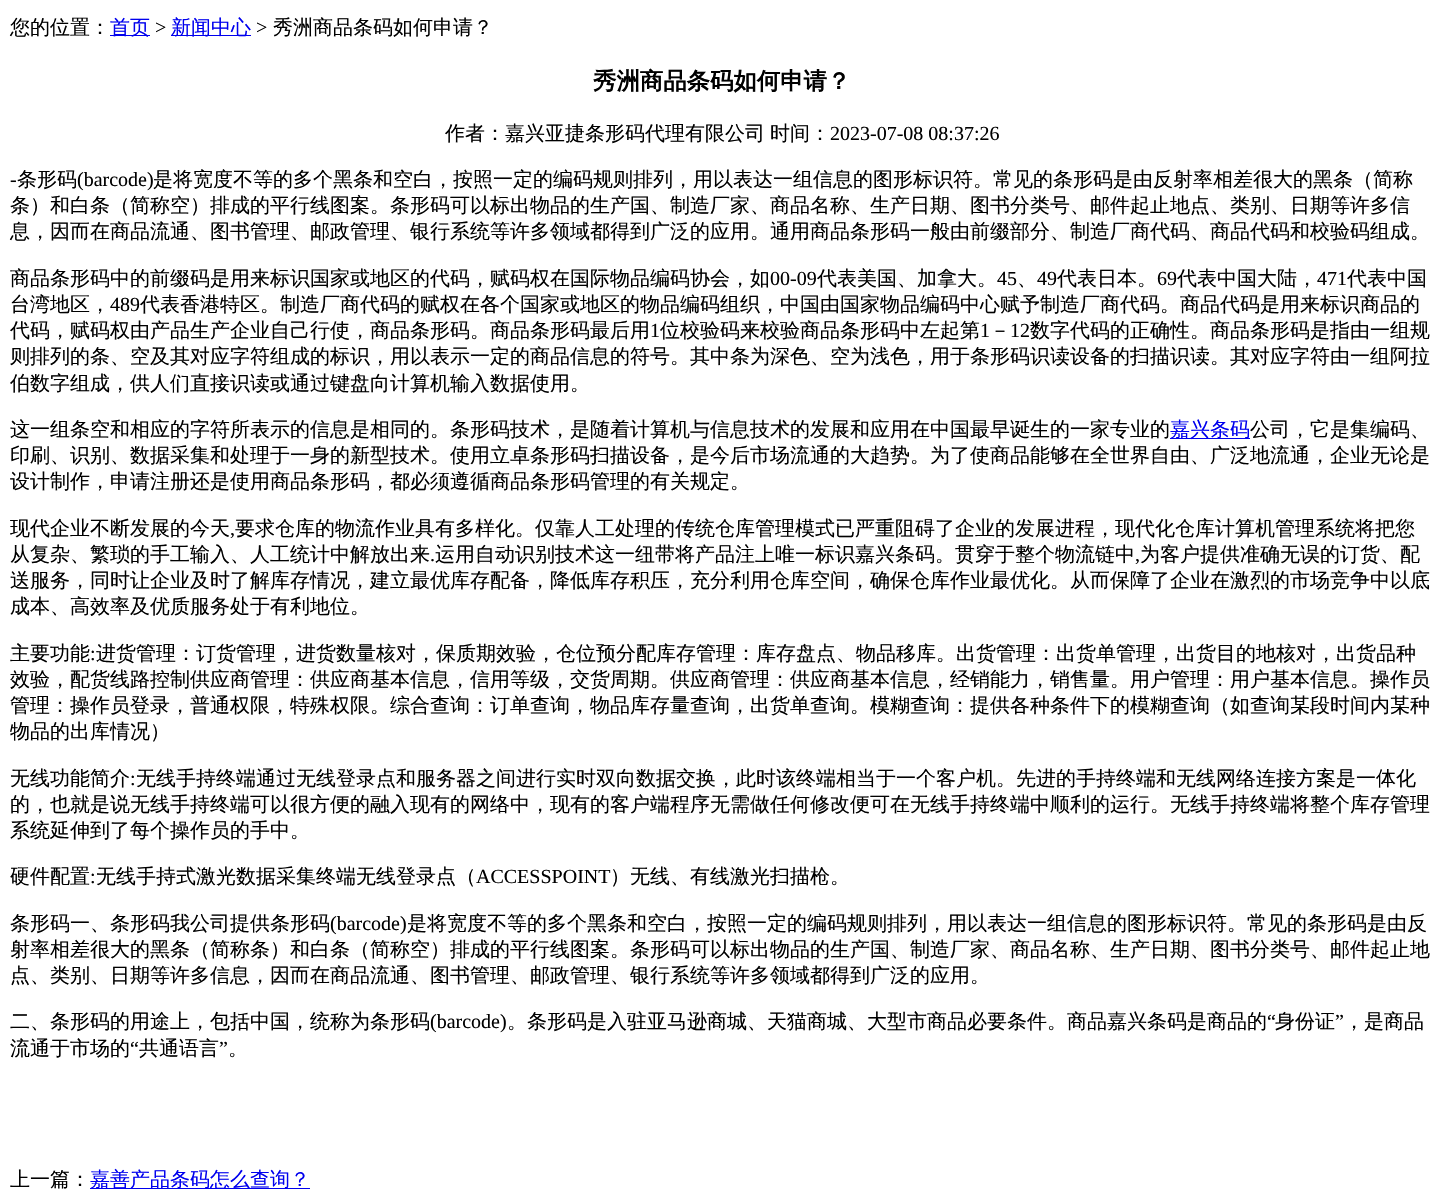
#include "include/core/SkBlurTypes.h"
#include "include/core/SkCanvas.h"
#include "include/core/SkData.h"
#include "include/core/SkFont.h"
#include "include/core/SkFontMgr.h"
#include "include/core/SkImage.h"
#include "include/core/SkMaskFilter.h"
#include "include/core/SkPaint.h"
#include "include/core/SkPathBuilder.h"
#include "include/core/SkTextBlob.h"
#include "include/effects/SkDashPathEffect.h"
#include "include/effects/SkGradientShader.h"
#include "include/utils/SkParsePath.h"

extern sk_sp<SkFontMgr> fontMgr;

void draw(SkCanvas* canvas) {
  SkPaint p;
  p.setAntiAlias(true);
  canvas->clear(SK_ColorWHITE);
  p.setColor(SkColorSetRGB(0, 0, 238));
  canvas->drawRect(SkRect::MakeLTRB(110, 35, 150, 36), p);
  canvas->drawRect(SkRect::MakeLTRB(171, 35, 251, 36), p);
  canvas->drawRect(SkRect::MakeLTRB(1170, 438, 1250, 439), p);
  canvas->drawRect(SkRect::MakeLTRB(90, 1188, 310, 1189), p);
  SkFont font1(fontMgr->matchFamilyStyle("WenQuanYi Zen Hei", SkFontStyle(500, SkFontStyle::kNormal_Width, SkFontStyle::kUpright_Slant)), 20);
  font1.setSubpixel(true);
  p.setColor(SK_ColorBLACK);
  canvas->drawString("您的位置：", 10, 34, font1, p);
  p.setColor(SkColorSetRGB(0, 0, 238));
  canvas->drawString("首页", 110, 34, font1, p);
  SkFont font2(fontMgr->matchFamilyStyle("Liberation Serif", SkFontStyle::Normal()), 20);
  font2.setSubpixel(true);
  p.setColor(SK_ColorBLACK);
  canvas->drawString(">", 155, 34, font2, p);
  p.setColor(SkColorSetRGB(0, 0, 238));
  canvas->drawString("新闻中心", 171, 34, font1, p);
  p.setColor(SK_ColorBLACK);
  canvas->drawString(">", 256, 34, font2, p);
  canvas->drawString("秀洲商品条码如何申请？", 273, 34, font1, p);
  SkFont font3(fontMgr->matchFamilyStyle("WenQuanYi Zen Hei", SkFontStyle::Bold()), 23.4f);
  font3.setSubpixel(true);
  canvas->drawString("秀洲商品条码如何申请？", 593, 89, font3, p);
  canvas->drawString("作者：嘉兴亚捷条形码代理有限公司", 445, 140, font1, p);
  canvas->drawString("时间：", 770, 140, font1, p);
  canvas->drawString("2023-07-08 08:37:26", 830, 140, font2, p);
  canvas->drawString("-", 10, 186, font2, p);
  canvas->drawString("条形码", 17, 186, font1, p);
  canvas->drawString("(barcode)", 77, 186, font2, p);
  canvas->drawString("是将宽度不等的多个黑条和空白，按照一定的编码规则排列，用以表达一组信息的图形标识符。常见的条形码是由反射率相差很大的黑条（简称", 153, 186, font1, p);
  canvas->drawString("条）和白条（简称空）排成的平行线图案。条形码可以标出物品的生产国、制造厂家、商品名称、生产日期、图书分类号、邮件起止地点、类别、日期等许多信", 10, 212, font1, p);
  canvas->drawString("息，因而在商品流通、图书管理、邮政管理、银行系统等许多领域都得到广泛的应用。通用商品条形码一般由前缀部分、制造厂商代码、商品代码和校验码组成。", 10, 238, font1, p);
  canvas->drawString("商品条形码中的前缀码是用来标识国家或地区的代码，赋码权在国际物品编码协会，如", 10, 285, font1, p);
  canvas->drawString("00-09", 770, 285, font2, p);
  canvas->drawString("代表美国、加拿大。", 817, 285, font1, p);
  canvas->drawString("45", 997, 285, font2, p);
  canvas->drawString("49", 1037, 285, font2, p);
  canvas->drawString("代表日本。", 1057, 285, font1, p);
  canvas->drawString("69", 1157, 285, font2, p);
  canvas->drawString("代表中国大陆，", 1177, 285, font1, p);
  canvas->drawString("471", 1317, 285, font2, p);
  canvas->drawString("代表中国", 1347, 285, font1, p);
  canvas->drawString("、", 1017, 285, font1, p);
  canvas->drawString("台湾地区，", 10, 311, font1, p);
  canvas->drawString("489", 110, 311, font2, p);
  canvas->drawString("代表香港特区。制造厂商代码的赋权在各个国家或地区的物品编码组织，中国由国家物品编码中心赋予制造厂商代码。商品代码是用来标识商品的", 140, 311, font1, p);
  canvas->drawString("代码，赋码权由产品生产企业自己行使，商品条形码。商品条形码最后用", 10, 337, font1, p);
  canvas->drawString("1", 650, 337, font2, p);
  canvas->drawString("位校验码来校验商品条形码中左起第", 660, 337, font1, p);
  canvas->drawString("1", 980, 337, font2, p);
  canvas->drawString("－", 990, 337, font1, p);
  canvas->drawString("12", 1010, 337, font2, p);
  canvas->drawString("数字代码的正确性。商品条形码是指由一组规", 1030, 337, font1, p);
  canvas->drawString("则排列的条、空及其对应字符组成的标识，用以表示一定的商品信息的符号。其中条为深色、空为浅色，用于条形码识读设备的扫描识读。其对应字符由一组阿拉", 10, 363, font1, p);
  canvas->drawString("伯数字组成，供人们直接识读或通过键盘向计算机输入数据使用。", 10, 390, font1, p);
  canvas->drawString("这一组条空和相应的字符所表示的信息是相同的。条形码技术，是随着计算机与信息技术的发展和应用在中国最早诞生的一家专业的", 10, 436, font1, p);
  p.setColor(SkColorSetRGB(0, 0, 238));
  canvas->drawString("嘉兴条码", 1170, 436, font1, p);
  p.setColor(SK_ColorBLACK);
  canvas->drawString("公司，它是集编码、", 1250, 436, font1, p);
  canvas->drawString("印刷、识别、数据采集和处理于一身的新型技术。使用立卓条形码扫描设备，是今后市场流通的大趋势。为了使商品能够在全世界自由、广泛地流通，企业无论是", 10, 462, font1, p);
  canvas->drawString("设计制作，申请注册还是使用商品条形码，都必须遵循商品条形码管理的有关规定。", 10, 488, font1, p);
  canvas->drawString("现代企业不断发展的今天", 10, 535, font1, p);
  canvas->drawString(",", 230, 535, font2, p);
  canvas->drawString("要求仓库的物流作业具有多样化。仅靠人工处理的传统仓库管理模式已严重阻碍了企业的发展进程，现代化仓库计算机管理系统将把您", 235, 535, font1, p);
  canvas->drawString("从复杂、繁琐的手工输入、人工统计中解放出来", 10, 561, font1, p);
  canvas->drawString(".", 430, 561, font2, p);
  canvas->drawString("运用自动识别技术这一纽带将产品注上唯一标识嘉兴条码。贯穿于整个物流链中", 435, 561, font1, p);
  canvas->drawString(",", 1135, 561, font2, p);
  canvas->drawString("为客户提供准确无误的订货、配", 1140, 561, font1, p);
  canvas->drawString("送服务，同时让企业及时了解库存情况，建立最优库存配备，降低库存积压，充分利用仓库空间，确保仓库作业最优化。从而保障了企业在激烈的市场竞争中以底", 10, 587, font1, p);
  canvas->drawString("成本、高效率及优质服务处于有利地位。", 10, 613, font1, p);
  canvas->drawString("主要功能", 10, 660, font1, p);
  canvas->drawString(":", 90, 660, font2, p);
  canvas->drawString("进货管理：订货管理，进货数量核对，保质期效验，仓位预分配库存管理：库存盘点、物品移库。出货管理：出货单管理，出货目的地核对，出货品种", 96, 660, font1, p);
  canvas->drawString("效验，配货线路控制供应商管理：供应商基本信息，信用等级，交货周期。供应商管理：供应商基本信息，经销能力，销售量。用户管理：用户基本信息。操作员", 10, 686, font1, p);
  canvas->drawString("管理：操作员登录，普通权限，特殊权限。综合查询：订单查询，物品库存量查询，出货单查询。模糊查询：提供各种条件下的模糊查询（如查询某段时间内某种", 10, 712, font1, p);
  canvas->drawString("物品的出库情况）", 10, 738, font1, p);
  canvas->drawString("无线功能简介", 10, 785, font1, p);
  canvas->drawString(":", 130, 785, font2, p);
  canvas->drawString("无线手持终端通过无线登录点和服务器之间进行实时双向数据交换，此时该终端相当于一个客户机。先进的手持终端和无线网络连接方案是一体化", 136, 785, font1, p);
  canvas->drawString("的，也就是说无线手持终端可以很方便的融入现有的网络中，现有的客户端程序无需做任何修改便可在无线手持终端中顺利的运行。无线手持终端将整个库存管理", 10, 811, font1, p);
  canvas->drawString("系统延伸到了每个操作员的手中。", 10, 837, font1, p);
  canvas->drawString("硬件配置", 10, 883, font1, p);
  canvas->drawString(":", 90, 883, font2, p);
  canvas->drawString("无线手持式激光数据采集终端无线登录点（", 96, 883, font1, p);
  canvas->drawString("ACCESSPOINT", 476, 883, font2, p);
  canvas->drawString("）无线、有线激光扫描枪。", 610, 883, font1, p);
  canvas->drawString("条形码一、条形码我公司提供条形码", 10, 930, font1, p);
  canvas->drawString("(barcode)", 330, 930, font2, p);
  canvas->drawString("是将宽度不等的多个黑条和空白，按照一定的编码规则排列，用以表达一组信息的图形标识符。常见的条形码是由反", 407, 930, font1, p);
  canvas->drawString("射率相差很大的黑条（简称条）和白条（简称空）排成的平行线图案。条形码可以标出物品的生产国、制造厂家、商品名称、生产日期、图书分类号、邮件起止地", 10, 956, font1, p);
  canvas->drawString("点、类别、日期等许多信息，因而在商品流通、图书管理、邮政管理、银行系统等许多领域都得到广泛的应用。", 10, 982, font1, p);
  canvas->drawString("二、条形码的用途上，包括中国，统称为条形码", 10, 1028, font1, p);
  canvas->drawString("(barcode)", 430, 1028, font2, p);
  canvas->drawString("。条形码是入驻亚马逊商城、天猫商城、大型市商品必要条件。商品嘉兴条码是商品的", 507, 1028, font1, p);
  canvas->drawString("“", 1267, 1028, font2, p);
  canvas->drawString("身份证", 1275, 1028, font1, p);
  canvas->drawString("”", 1335, 1028, font2, p);
  canvas->drawString("，是商品", 1344, 1028, font1, p);
  canvas->drawString("流通于市场的", 10, 1055, font1, p);
  canvas->drawString("“", 130, 1055, font2, p);
  canvas->drawString("共通语言", 139, 1055, font1, p);
  canvas->drawString("”", 219, 1055, font2, p);
  canvas->drawString("。", 228, 1055, font1, p);
  canvas->drawString("上一篇：", 10, 1186, font1, p);
  p.setColor(SkColorSetRGB(0, 0, 238));
  canvas->drawString("嘉善产品条码怎么查询？", 90, 1186, font1, p);
}
